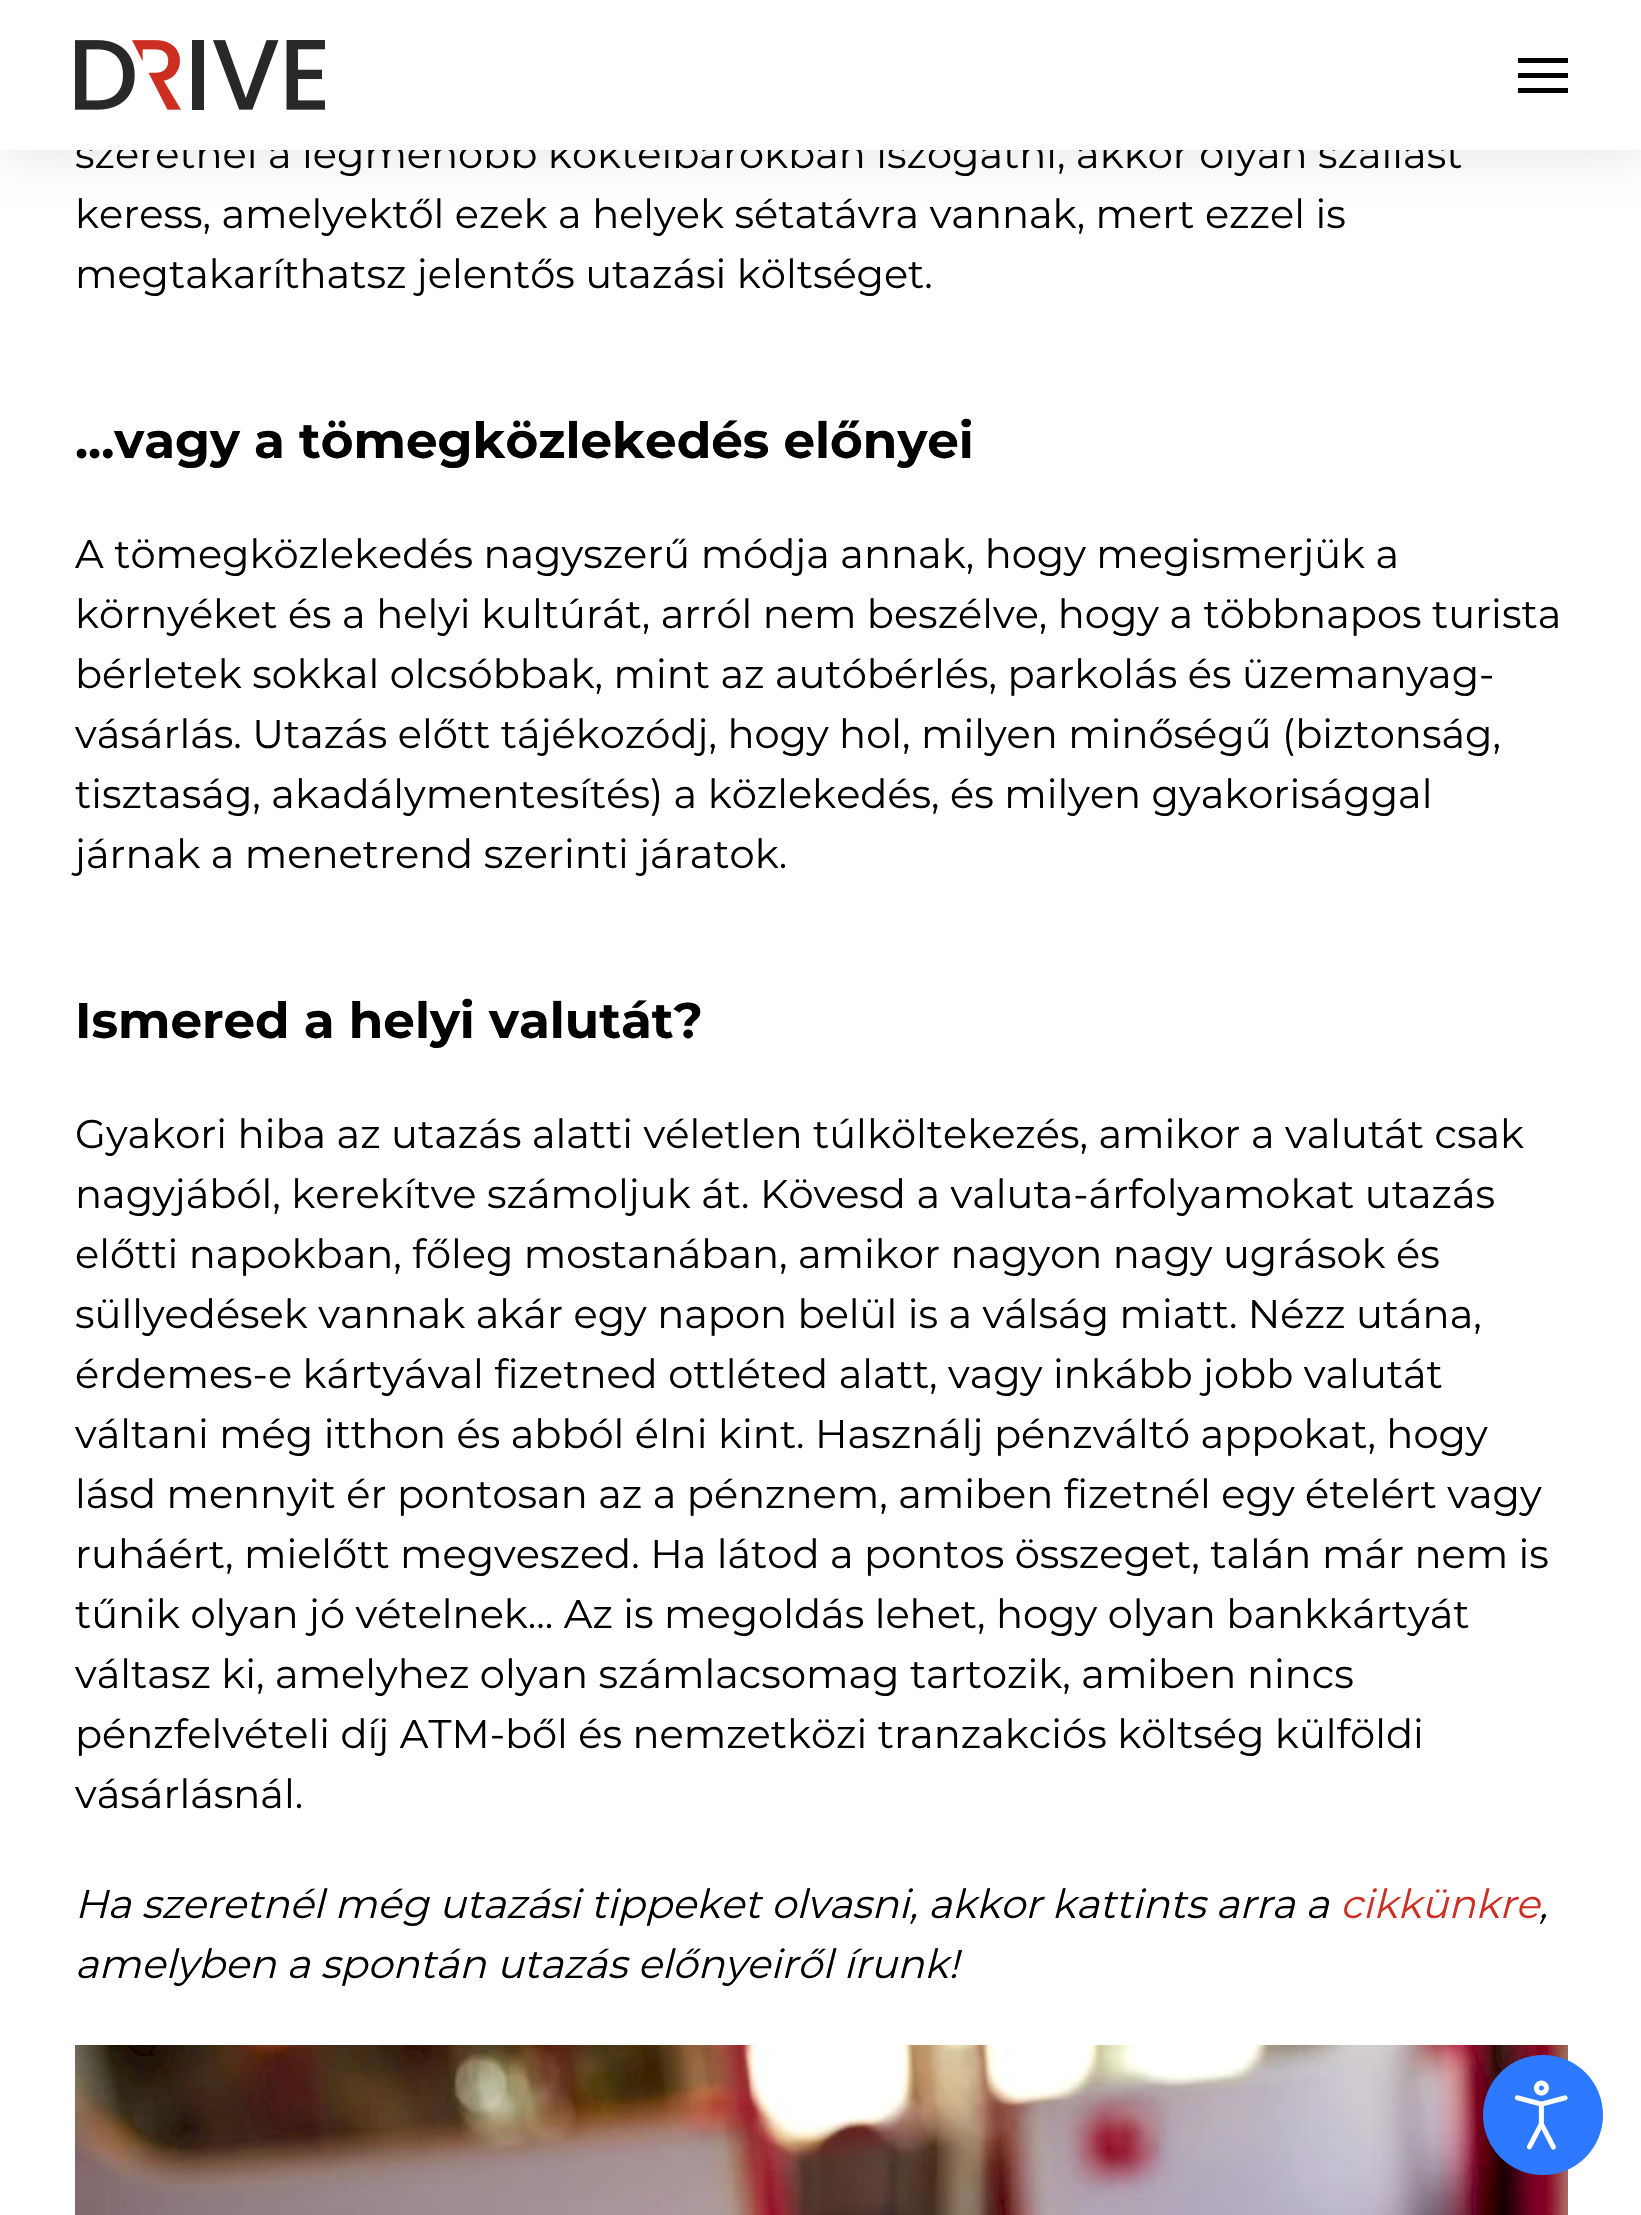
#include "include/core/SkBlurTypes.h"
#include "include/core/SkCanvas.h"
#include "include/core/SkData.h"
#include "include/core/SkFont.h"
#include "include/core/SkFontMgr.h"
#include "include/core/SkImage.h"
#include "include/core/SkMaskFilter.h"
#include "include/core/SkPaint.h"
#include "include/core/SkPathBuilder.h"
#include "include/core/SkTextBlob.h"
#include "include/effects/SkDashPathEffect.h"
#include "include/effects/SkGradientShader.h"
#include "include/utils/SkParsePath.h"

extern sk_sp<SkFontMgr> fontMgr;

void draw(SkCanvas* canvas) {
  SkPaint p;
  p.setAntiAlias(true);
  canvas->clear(SK_ColorWHITE);
  p.setColor(SkColorSetARGB(26, 0, 0, 0));
  p.setMaskFilter(SkMaskFilter::MakeBlur(kNormal_SkBlurStyle, 25));
  canvas->drawRect(SkRect::MakeLTRB(3, 3, 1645, 153), p);
  p.setMaskFilter(nullptr);
  canvas->drawImageRect(SkImages::DeferredFromEncodedData(SkData::MakeFromFileName("images/2.png")), SkRect::MakeLTRB(75, 2045, 1568, 2215), SkSamplingOptions());
  p.setColor(SkColorSetRGB(45, 121, 255));
  canvas->drawCircle(1543, 2115, 60, p);
  canvas->drawImageRect(SkImages::DeferredFromEncodedData(SkData::MakeFromFileName("images/3.png")), SkRect::MakeLTRB(1514, 2080, 1568, 2150), SkSamplingOptions());
  SkFont font1(fontMgr->matchFamilyStyle("Montserrat", SkFontStyle(100, SkFontStyle::kNormal_Width, SkFontStyle::kUpright_Slant)), 40);
  font1.setSubpixel(true);
  p.setColor(SK_ColorBLACK);
  canvas->drawString("szeretnél a legmenőbb koktélbárokban iszogatni, akkor olyan szállást", 75, 168, font1, p);
  p.setColor(SK_ColorWHITE);
  canvas->drawRect(SkRect::MakeLTRB(0, 0, 1641, 150), p);
  p.setColor(SK_ColorBLACK);
  canvas->drawRect(SkRect::MakeLTRB(1518, 88, 1568, 93), p);
  canvas->drawRect(SkRect::MakeLTRB(1518, 73, 1568, 78), p);
  canvas->drawRect(SkRect::MakeLTRB(1518, 58, 1568, 63), p);
  canvas->drawImageRect(SkImages::DeferredFromEncodedData(SkData::MakeFromFileName("images/1.png")), SkRect::MakeLTRB(75, 40, 325, 110), SkSamplingOptions());
  canvas->drawString("keress, amelyektől ezek a helyek sétatávra vannak, mert ezzel is", 75, 228, font1, p);
  canvas->drawString("megtakaríthatsz jelentős utazási költséget.", 75, 288, font1, p);
  SkFont font2(fontMgr->matchFamilyStyle("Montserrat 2", SkFontStyle(100, SkFontStyle::kNormal_Width, SkFontStyle::kUpright_Slant)), 50);
  font2.setSubpixel(true);
  canvas->drawString("...vagy a tömegközlekedés előnyei", 75, 458, font2, p);
  canvas->drawString("A tömegközlekedés nagyszerű módja annak, hogy megismerjük a", 75, 568, font1, p);
  canvas->drawString("környéket és a helyi kultúrát, arról nem beszélve, hogy a többnapos turista", 75, 628, font1, p);
  canvas->drawString("bérletek sokkal olcsóbbak, mint az autóbérlés, parkolás és üzemanyag-", 75, 688, font1, p);
  canvas->drawString("vásárlás. Utazás előtt tájékozódj, hogy hol, milyen minőségű (biztonság,", 75, 748, font1, p);
  canvas->drawString("tisztaság, akadálymentesítés) a közlekedés, és milyen gyakorisággal", 75, 808, font1, p);
  canvas->drawString("járnak a menetrend szerinti járatok.", 75, 868, font1, p);
  canvas->drawString("Ismered a helyi valutát?", 75, 1038, font2, p);
  canvas->drawString("Gyakori hiba az utazás alatti véletlen túlköltekezés, amikor a valutát csak", 75, 1148, font1, p);
  canvas->drawString("nagyjából, kerekítve számoljuk át. Kövesd a valuta-árfolyamokat utazás", 75, 1208, font1, p);
  canvas->drawString("előtti napokban, főleg mostanában, amikor nagyon nagy ugrások és", 75, 1268, font1, p);
  canvas->drawString("süllyedések vannak akár egy napon belül is a válság miatt. Nézz utána,", 75, 1328, font1, p);
  canvas->drawString("érdemes-e kártyával fizetned ottléted alatt, vagy inkább jobb valutát", 75, 1388, font1, p);
  canvas->drawString("váltani még itthon és abból élni kint. Használj pénzváltó appokat, hogy", 75, 1448, font1, p);
  canvas->drawString("lásd mennyit ér pontosan az a pénznem, amiben fizetnél egy ételért vagy", 75, 1508, font1, p);
  canvas->drawString("ruháért, mielőtt megveszed. Ha látod a pontos összeget, talán már nem is", 75, 1568, font1, p);
  canvas->drawString("tűnik olyan jó vételnek... Az is megoldás lehet, hogy olyan bankkártyát", 75, 1628, font1, p);
  canvas->drawString("váltasz ki, amelyhez olyan számlacsomag tartozik, amiben nincs", 75, 1688, font1, p);
  canvas->drawString("pénzfelvételi díj ATM-ből és nemzetközi tranzakciós költség külföldi", 75, 1748, font1, p);
  canvas->drawString("vásárlásnál.", 75, 1808, font1, p);
  SkFont font3(fontMgr->matchFamilyStyle("Montserrat", SkFontStyle(100, SkFontStyle::kNormal_Width, SkFontStyle::kItalic_Slant)), 40);
  font3.setSubpixel(true);
  canvas->drawString("Ha szeretnél még utazási tippeket olvasni, akkor kattints arra a", 75, 1918, font3, p);
  p.setColor(SkColorSetRGB(204, 46, 34));
  canvas->drawString("cikkünkre", 1340, 1918, font3, p);
  p.setColor(SK_ColorBLACK);
  canvas->drawString(",", 1539, 1918, font3, p);
  canvas->drawString("amelyben a spontán utazás előnyeiről írunk!", 75, 1978, font3, p);
}
